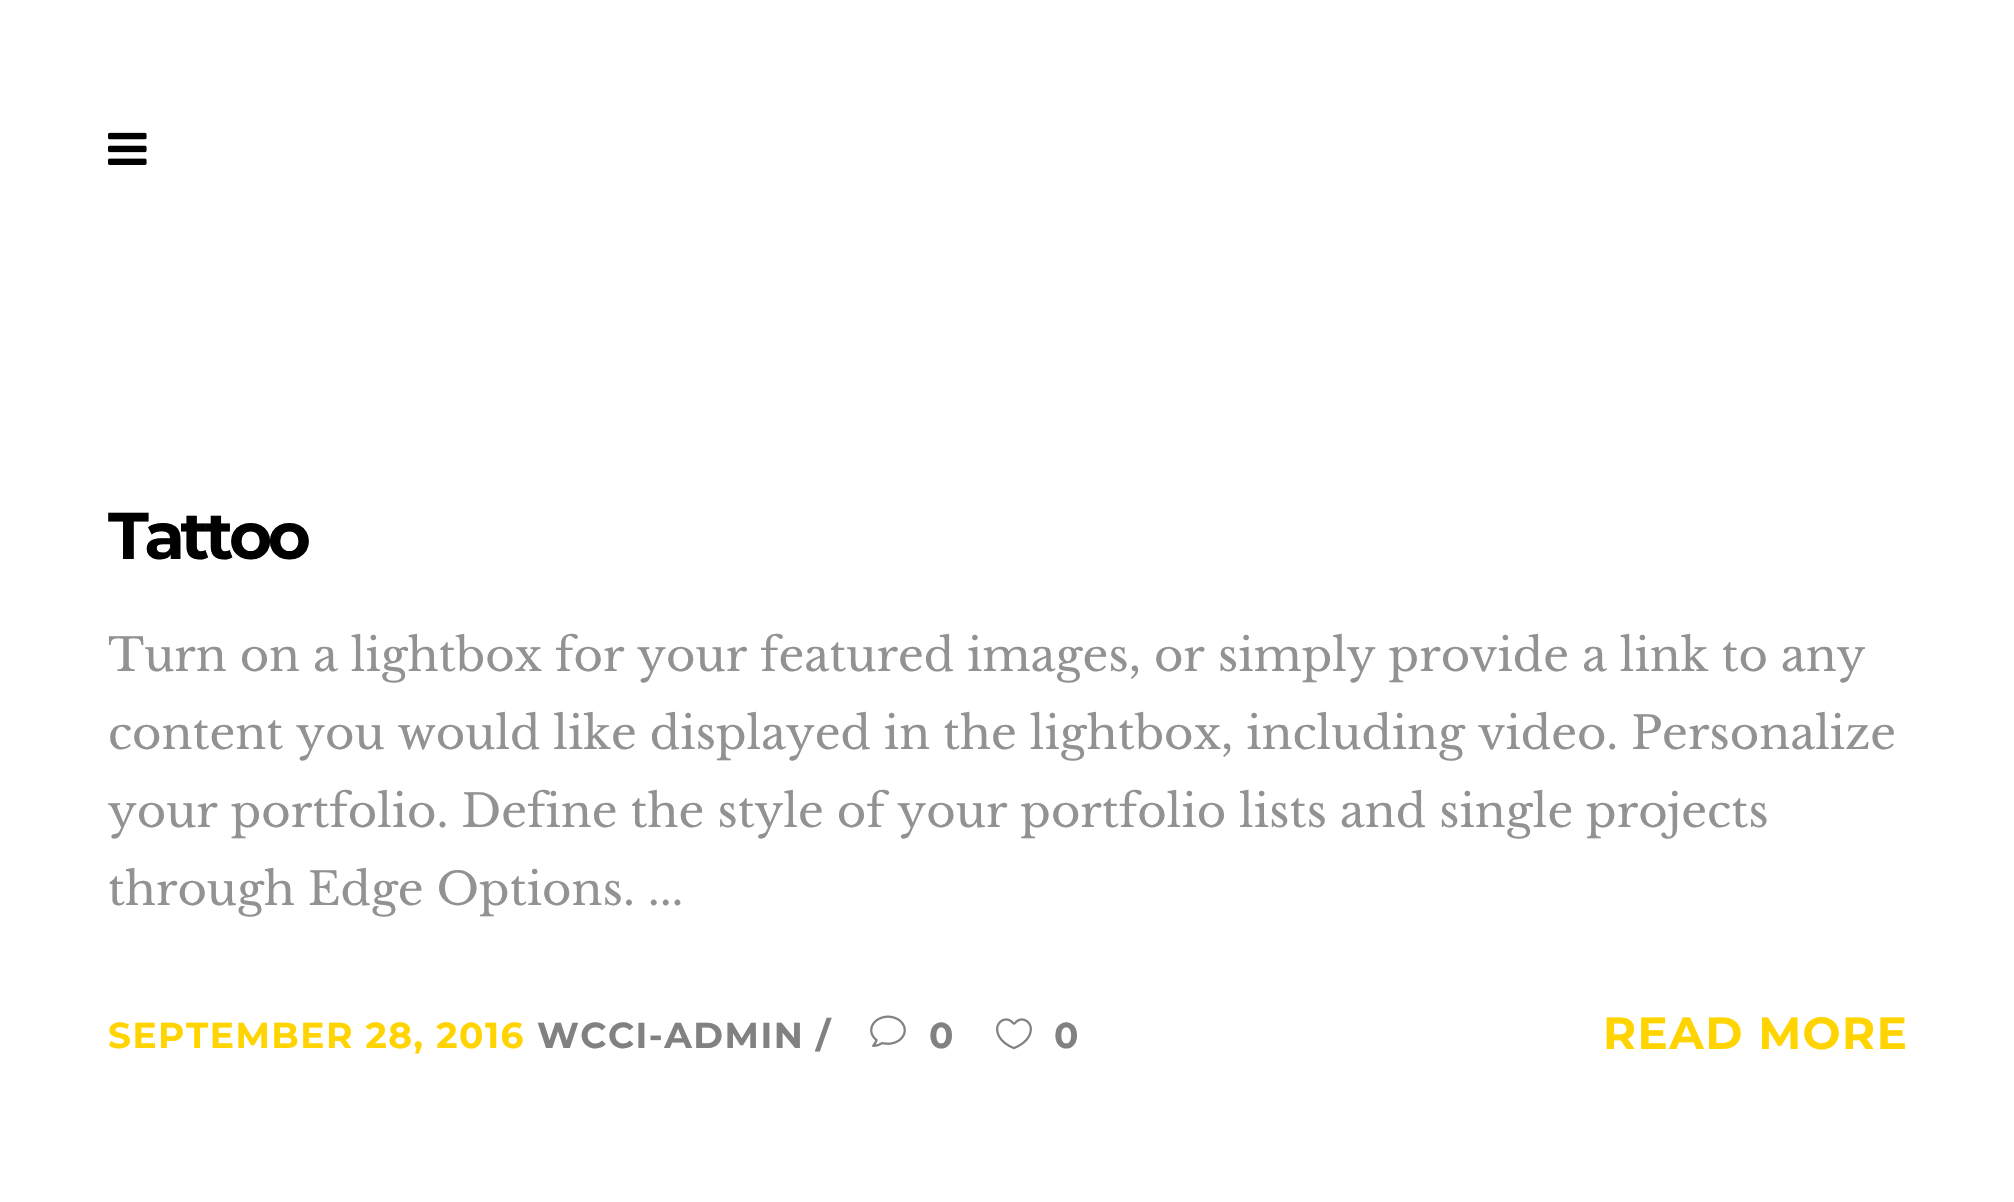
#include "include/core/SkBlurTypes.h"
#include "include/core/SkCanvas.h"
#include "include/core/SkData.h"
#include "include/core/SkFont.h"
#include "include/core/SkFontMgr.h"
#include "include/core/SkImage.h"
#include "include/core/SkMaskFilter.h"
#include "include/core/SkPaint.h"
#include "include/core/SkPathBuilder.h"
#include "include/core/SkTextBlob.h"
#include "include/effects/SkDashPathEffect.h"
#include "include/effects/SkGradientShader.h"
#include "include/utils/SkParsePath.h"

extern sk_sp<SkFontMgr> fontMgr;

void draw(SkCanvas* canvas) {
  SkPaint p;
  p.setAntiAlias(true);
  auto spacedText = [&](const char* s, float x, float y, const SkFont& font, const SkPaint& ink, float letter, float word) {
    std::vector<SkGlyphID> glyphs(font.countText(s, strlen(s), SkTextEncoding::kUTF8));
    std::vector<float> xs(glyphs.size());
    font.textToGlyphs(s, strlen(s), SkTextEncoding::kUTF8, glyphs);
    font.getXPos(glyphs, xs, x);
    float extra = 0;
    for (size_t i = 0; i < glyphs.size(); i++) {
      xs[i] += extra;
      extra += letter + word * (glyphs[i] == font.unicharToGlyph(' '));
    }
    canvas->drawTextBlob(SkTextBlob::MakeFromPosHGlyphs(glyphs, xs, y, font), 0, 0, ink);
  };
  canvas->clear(SK_ColorWHITE);
  canvas->drawImageRect(SkImages::DeferredFromEncodedData(SkData::MakeFromFileName("images/1.png")), SkRect::MakeLTRB(108, 132, 147, 165), SkSamplingOptions());
  canvas->drawImageRect(SkImages::DeferredFromEncodedData(SkData::MakeFromFileName("images/2.png")), SkRect::MakeLTRB(870, 1015, 906, 1047), SkSamplingOptions());
  canvas->drawImageRect(SkImages::DeferredFromEncodedData(SkData::MakeFromFileName("images/3.png")), SkRect::MakeLTRB(996, 1018, 1032, 1050), SkSamplingOptions());
  SkFont font1(fontMgr->matchFamilyStyle("Montserrat", SkFontStyle::Bold()), 66);
  font1.setSubpixel(true);
  p.setColor(SK_ColorBLACK);
  spacedText("Tattoo", 108, 559, font1, p, -4.5f, 0);
  SkFont font2(fontMgr->matchFamilyStyle("Libre Baskerville", SkFontStyle::Normal()), 45);
  font2.setSubpixel(true);
  p.setColor(SkColorSetRGB(146, 146, 146));
  canvas->drawString("Turn on a lightbox for your featured images, or simply provide a link to any", 108, 671, font2, p);
  canvas->drawString("content you would like displayed in the lightbox, including video. Personalize", 108, 749, font2, p);
  canvas->drawString("your portfolio. Define the style of your portfolio lists and single projects", 108, 827, font2, p);
  canvas->drawString("through Edge Options. ...", 108, 905, font2, p);
  SkFont font3(fontMgr->matchFamilyStyle("Montserrat", SkFontStyle::Bold()), 36);
  font3.setSubpixel(true);
  p.setColor(SkColorSetRGB(255, 212, 1));
  spacedText("SEPTEMBER 28, 2016", 108, 1048, font3, p, 1.5f, 0);
  p.setColor(SkColorSetRGB(129, 129, 129));
  spacedText("WCCI-ADMIN /", 537, 1048, font3, p, 1.5f, 0);
  spacedText("0", 929, 1048, font3, p, 1.5f, 0);
  spacedText("0", 1054, 1048, font3, p, 1.5f, 0);
  SkFont font4(fontMgr->matchFamilyStyle("Montserrat", SkFontStyle::Bold()), 45);
  font4.setSubpixel(true);
  p.setColor(SkColorSetRGB(255, 212, 1));
  spacedText("READ MORE", 1603, 1049, font4, p, 1.5f, 0);
}
